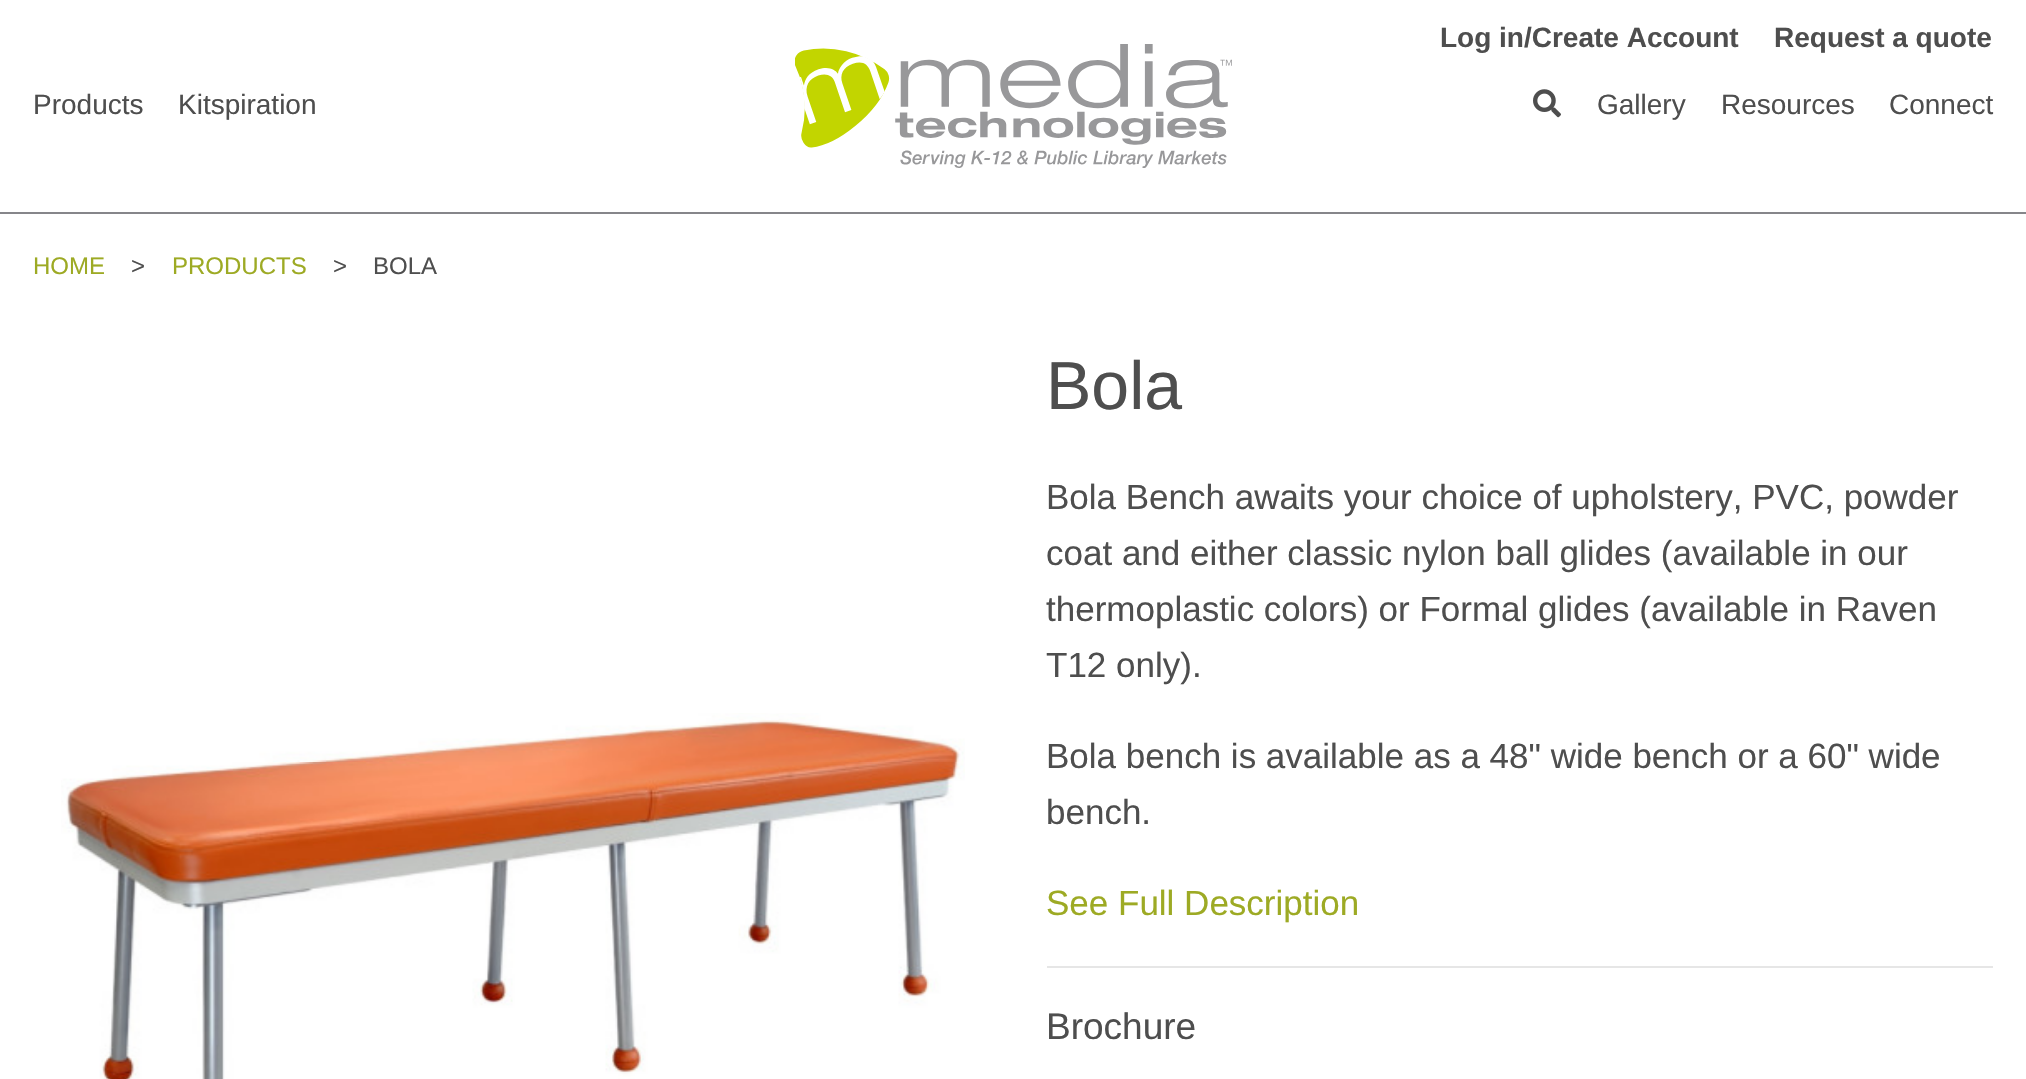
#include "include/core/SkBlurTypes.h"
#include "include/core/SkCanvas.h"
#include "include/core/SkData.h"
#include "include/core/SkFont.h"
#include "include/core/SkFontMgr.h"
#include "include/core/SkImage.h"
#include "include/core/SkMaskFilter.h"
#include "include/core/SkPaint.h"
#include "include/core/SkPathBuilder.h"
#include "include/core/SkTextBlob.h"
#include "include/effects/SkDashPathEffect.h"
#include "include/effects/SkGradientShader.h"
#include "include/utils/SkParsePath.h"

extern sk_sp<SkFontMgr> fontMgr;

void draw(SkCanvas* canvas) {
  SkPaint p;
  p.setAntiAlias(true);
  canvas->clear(SK_ColorWHITE);
  canvas->drawImageRect(SkImages::DeferredFromEncodedData(SkData::MakeFromFileName("images/1.png")), SkRect::MakeLTRB(795, 44, 1232, 168), SkSamplingOptions());
  canvas->drawImageRect(SkImages::DeferredFromEncodedData(SkData::MakeFromFileName("images/2.png")), SkRect::MakeLTRB(1533, 89, 1561, 118), SkSamplingOptions());
  p.setColor(SkColorSetRGB(134, 134, 138));
  canvas->drawRect(SkRect::MakeLTRB(0, 212, 2026, 214), p);
  canvas->drawImageRect(SkImages::DeferredFromEncodedData(SkData::MakeFromFileName("images/3.png")), SkRect::MakeLTRB(61, 713, 965, 1079), SkSamplingOptions());
  p.setColor(SkColorSetRGB(230, 230, 230));
  canvas->drawRect(SkRect::MakeLTRB(1047, 966, 1993, 968), p);
  SkFont font1(fontMgr->matchFamilyStyle("Liberation Sans", SkFontStyle::Bold()), 28);
  font1.setSubpixel(true);
  p.setColor(SkColorSetRGB(78, 78, 78));
  canvas->drawString("Log in/Create Account", 1440, 47, font1, p);
  canvas->drawString("Request a quote", 1774, 47, font1, p);
  SkFont font2(fontMgr->matchFamilyStyle("Liberation Sans", SkFontStyle::Normal()), 28);
  font2.setSubpixel(true);
  canvas->drawString("Products", 33, 114, font2, p);
  canvas->drawString("Kitspiration", 178, 114, font2, p);
  canvas->drawString("Gallery", 1597, 114, font2, p);
  canvas->drawString("Resources", 1721, 114, font2, p);
  canvas->drawString("Connect", 1889, 114, font2, p);
  SkFont font3(fontMgr->matchFamilyStyle("Liberation Sans", SkFontStyle::Normal()), 24);
  font3.setSubpixel(true);
  p.setColor(SkColorSetRGB(157, 170, 36));
  canvas->drawString("HOME", 33, 274, font3, p);
  p.setColor(SkColorSetRGB(78, 78, 78));
  canvas->drawString(">", 131, 274, font3, p);
  p.setColor(SkColorSetRGB(157, 170, 36));
  canvas->drawString("PRODUCTS", 172, 274, font3, p);
  p.setColor(SkColorSetRGB(78, 78, 78));
  canvas->drawString(">", 333, 274, font3, p);
  canvas->drawString("BOLA", 373, 274, font3, p);
  SkFont font4(fontMgr->matchFamilyStyle("Liberation Sans", SkFontStyle::Normal()), 68);
  font4.setSubpixel(true);
  canvas->drawString("Bola", 1046, 409, font4, p);
  SkFont font5(fontMgr->matchFamilyStyle("Liberation Sans", SkFontStyle::Normal()), 35);
  font5.setSubpixel(true);
  canvas->drawString("Bola Bench awaits your choice of upholstery, PVC, powder", 1046, 509, font5, p);
  canvas->drawString("coat and either classic nylon ball glides (available in our", 1046, 565, font5, p);
  canvas->drawString("thermoplastic colors) or Formal glides (available in Raven", 1046, 621, font5, p);
  canvas->drawString("T12 only).", 1046, 677, font5, p);
  canvas->drawString("Bola bench is available as a 48\" wide bench or a 60\" wide", 1046, 768, font5, p);
  canvas->drawString("bench.", 1046, 824, font5, p);
  p.setColor(SkColorSetRGB(157, 170, 36));
  canvas->drawString("See Full Description", 1046, 915, font5, p);
  SkFont font6(fontMgr->matchFamilyStyle("Liberation Sans", SkFontStyle::Normal()), 37);
  font6.setSubpixel(true);
  p.setColor(SkColorSetRGB(78, 78, 78));
  canvas->drawString("Brochure", 1046, 1039, font6, p);
}
